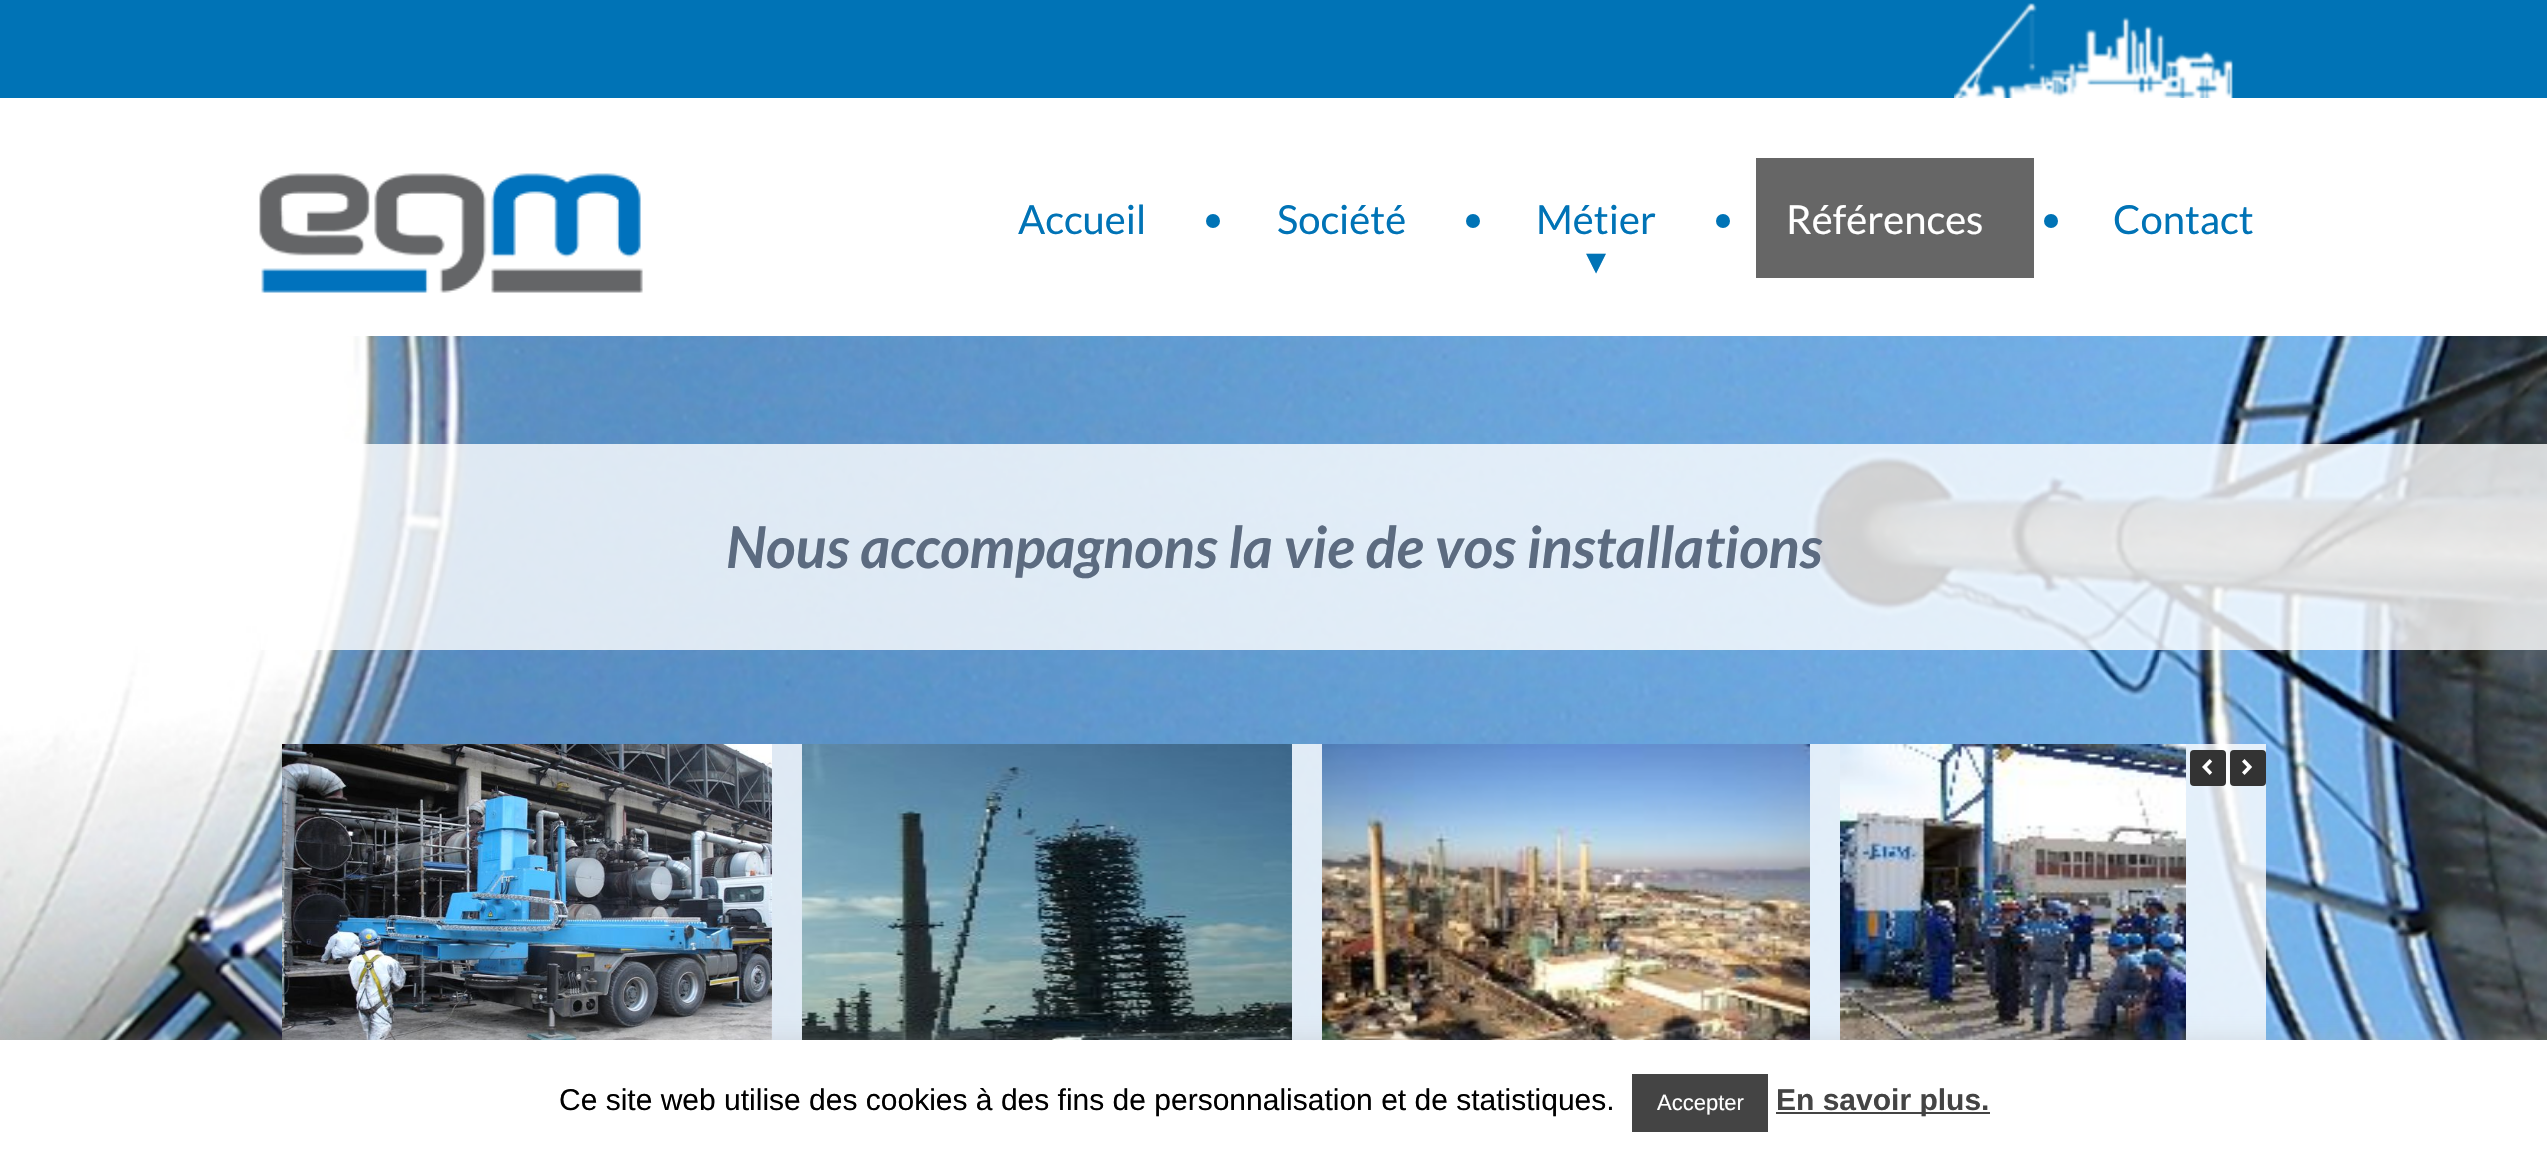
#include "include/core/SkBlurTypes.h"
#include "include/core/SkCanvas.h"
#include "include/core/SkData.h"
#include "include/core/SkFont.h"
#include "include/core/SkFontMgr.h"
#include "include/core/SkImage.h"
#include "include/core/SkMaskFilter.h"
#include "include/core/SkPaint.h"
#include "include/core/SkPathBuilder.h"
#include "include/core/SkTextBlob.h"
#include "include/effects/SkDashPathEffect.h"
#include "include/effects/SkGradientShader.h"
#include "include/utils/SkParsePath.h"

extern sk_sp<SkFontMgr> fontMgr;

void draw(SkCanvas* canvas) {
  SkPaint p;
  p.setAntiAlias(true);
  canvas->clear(SK_ColorWHITE);
  canvas->drawImageRect(SkImages::DeferredFromEncodedData(SkData::MakeFromFileName("images/1.png")), SkRect::MakeLTRB(0, 336, 2547, 1040), SkSamplingOptions());
  p.setColor(SkColorSetRGB(0, 115, 182));
  canvas->drawRect(SkRect::MakeLTRB(0, 0, 2547, 98), p);
  canvas->drawImageRect(SkImages::DeferredFromEncodedData(SkData::MakeFromFileName("images/2.png")), SkRect::MakeLTRB(1954, 3, 2233, 98), SkSamplingOptions());
  canvas->drawImageRect(SkImages::DeferredFromEncodedData(SkData::MakeFromFileName("images/3.png")), SkRect::MakeLTRB(259, 173, 643, 293), SkSamplingOptions());
  canvas->drawCircle(1213, 221, 7, p);
  canvas->drawCircle(1473, 221, 7, p);
  p.setColor(SkColorSetRGB(102, 102, 102));
  canvas->drawRect(SkRect::MakeLTRB(1756, 158, 2034, 278), p);
  p.setColor(SkColorSetRGB(0, 115, 182));
  canvas->drawCircle(1723, 221, 7, p);
  canvas->drawCircle(2051, 221, 7, p);
  p.setColor(SkColorSetARGB(204, 255, 255, 255));
  canvas->drawRect(SkRect::MakeLTRB(261, 444, 2547, 650), p);
  canvas->drawRect(SkRect::MakeLTRB(772, 744, 2266, 1040), p);
  canvas->drawImageRect(SkImages::DeferredFromEncodedData(SkData::MakeFromFileName("images/4.png")), SkRect::MakeLTRB(282, 744, 772, 1040), SkSamplingOptions());
  canvas->drawImageRect(SkImages::DeferredFromEncodedData(SkData::MakeFromFileName("images/5.png")), SkRect::MakeLTRB(802, 744, 1292, 1040), SkSamplingOptions());
  canvas->drawImageRect(SkImages::DeferredFromEncodedData(SkData::MakeFromFileName("images/6.png")), SkRect::MakeLTRB(1322, 744, 1810, 1040), SkSamplingOptions());
  canvas->drawImageRect(SkImages::DeferredFromEncodedData(SkData::MakeFromFileName("images/7.png")), SkRect::MakeLTRB(1840, 744, 2186, 1040), SkSamplingOptions());
  p.setColor(SkColorSetRGB(51, 51, 51));
  canvas->drawRoundRect(SkRect::MakeLTRB(2190, 750, 2226, 786), 4, 4, p);
  canvas->drawImageRect(SkImages::DeferredFromEncodedData(SkData::MakeFromFileName("images/8.png")), SkRect::MakeLTRB(2202, 759, 2213, 775), SkSamplingOptions());
  canvas->drawRoundRect(SkRect::MakeLTRB(2230, 750, 2266, 786), 4, 4, p);
  canvas->drawImageRect(SkImages::DeferredFromEncodedData(SkData::MakeFromFileName("images/9.png")), SkRect::MakeLTRB(2242, 759, 2252, 775), SkSamplingOptions());
  p.setColor(SkColorSetARGB(77, 172, 171, 171));
  p.setMaskFilter(SkMaskFilter::MakeBlur(kNormal_SkBlurStyle, 10));
  canvas->drawRect(SkRect::MakeLTRB(0, 1038, 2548, 1154), p);
  p.setMaskFilter(nullptr);
  p.setColor(SK_ColorWHITE);
  canvas->drawRect(SkRect::MakeLTRB(0, 1040, 2547, 1156), p);
  p.setColor(SkColorSetRGB(68, 68, 68));
  canvas->drawRect(SkRect::MakeLTRB(1632, 1074, 1768, 1132), p);
  canvas->drawRect(SkRect::MakeLTRB(1776, 1112, 1990, 1114), p);
  SkFont font1(fontMgr->matchFamilyStyle("Lato", SkFontStyle::Normal()), 40);
  font1.setSubpixel(true);
  p.setColor(SkColorSetRGB(0, 115, 182));
  canvas->drawString("Accueil", 1018, 234, font1, p);
  canvas->drawString("Société", 1277, 234, font1, p);
  canvas->drawString("Métier", 1536, 234, font1, p);
  SkFont font2(fontMgr->matchFamilyStyle("DejaVu Sans", SkFontStyle::Normal()), 40);
  font2.setSubpixel(true);
  canvas->drawString("▾", 1586, 274, font2, p);
  p.setColor(SK_ColorWHITE);
  canvas->drawString("Références", 1786, 234, font1, p);
  p.setColor(SkColorSetRGB(0, 115, 182));
  canvas->drawString("Contact", 2113, 234, font1, p);
  SkFont font3(fontMgr->matchFamilyStyle("Lato", SkFontStyle::BoldItalic()), 57.6f);
  font3.setSubpixel(true);
  p.setColor(SkColorSetRGB(92, 107, 128));
  canvas->drawString("Nous accompagnons la vie de vos installations", 726, 568, font3, p);
  SkFont font4(fontMgr->matchFamilyStyle("Liberation Sans", SkFontStyle::Normal()), 30);
  font4.setSubpixel(true);
  p.setColor(SK_ColorBLACK);
  canvas->drawString("Ce site web utilise des cookies à des fins de personnalisation et de statistiques.", 559, 1110, font4, p);
  SkFont font5(fontMgr->matchFamilyStyle("Liberation Sans", SkFontStyle::Normal()), 22);
  font5.setSubpixel(true);
  p.setColor(SK_ColorWHITE);
  canvas->drawString("Accepter", 1657, 1110, font5, p);
  SkFont font6(fontMgr->matchFamilyStyle("Liberation Sans", SkFontStyle::Bold()), 30);
  font6.setSubpixel(true);
  p.setColor(SkColorSetRGB(68, 68, 68));
  canvas->drawString("En savoir plus.", 1776, 1110, font6, p);
}
